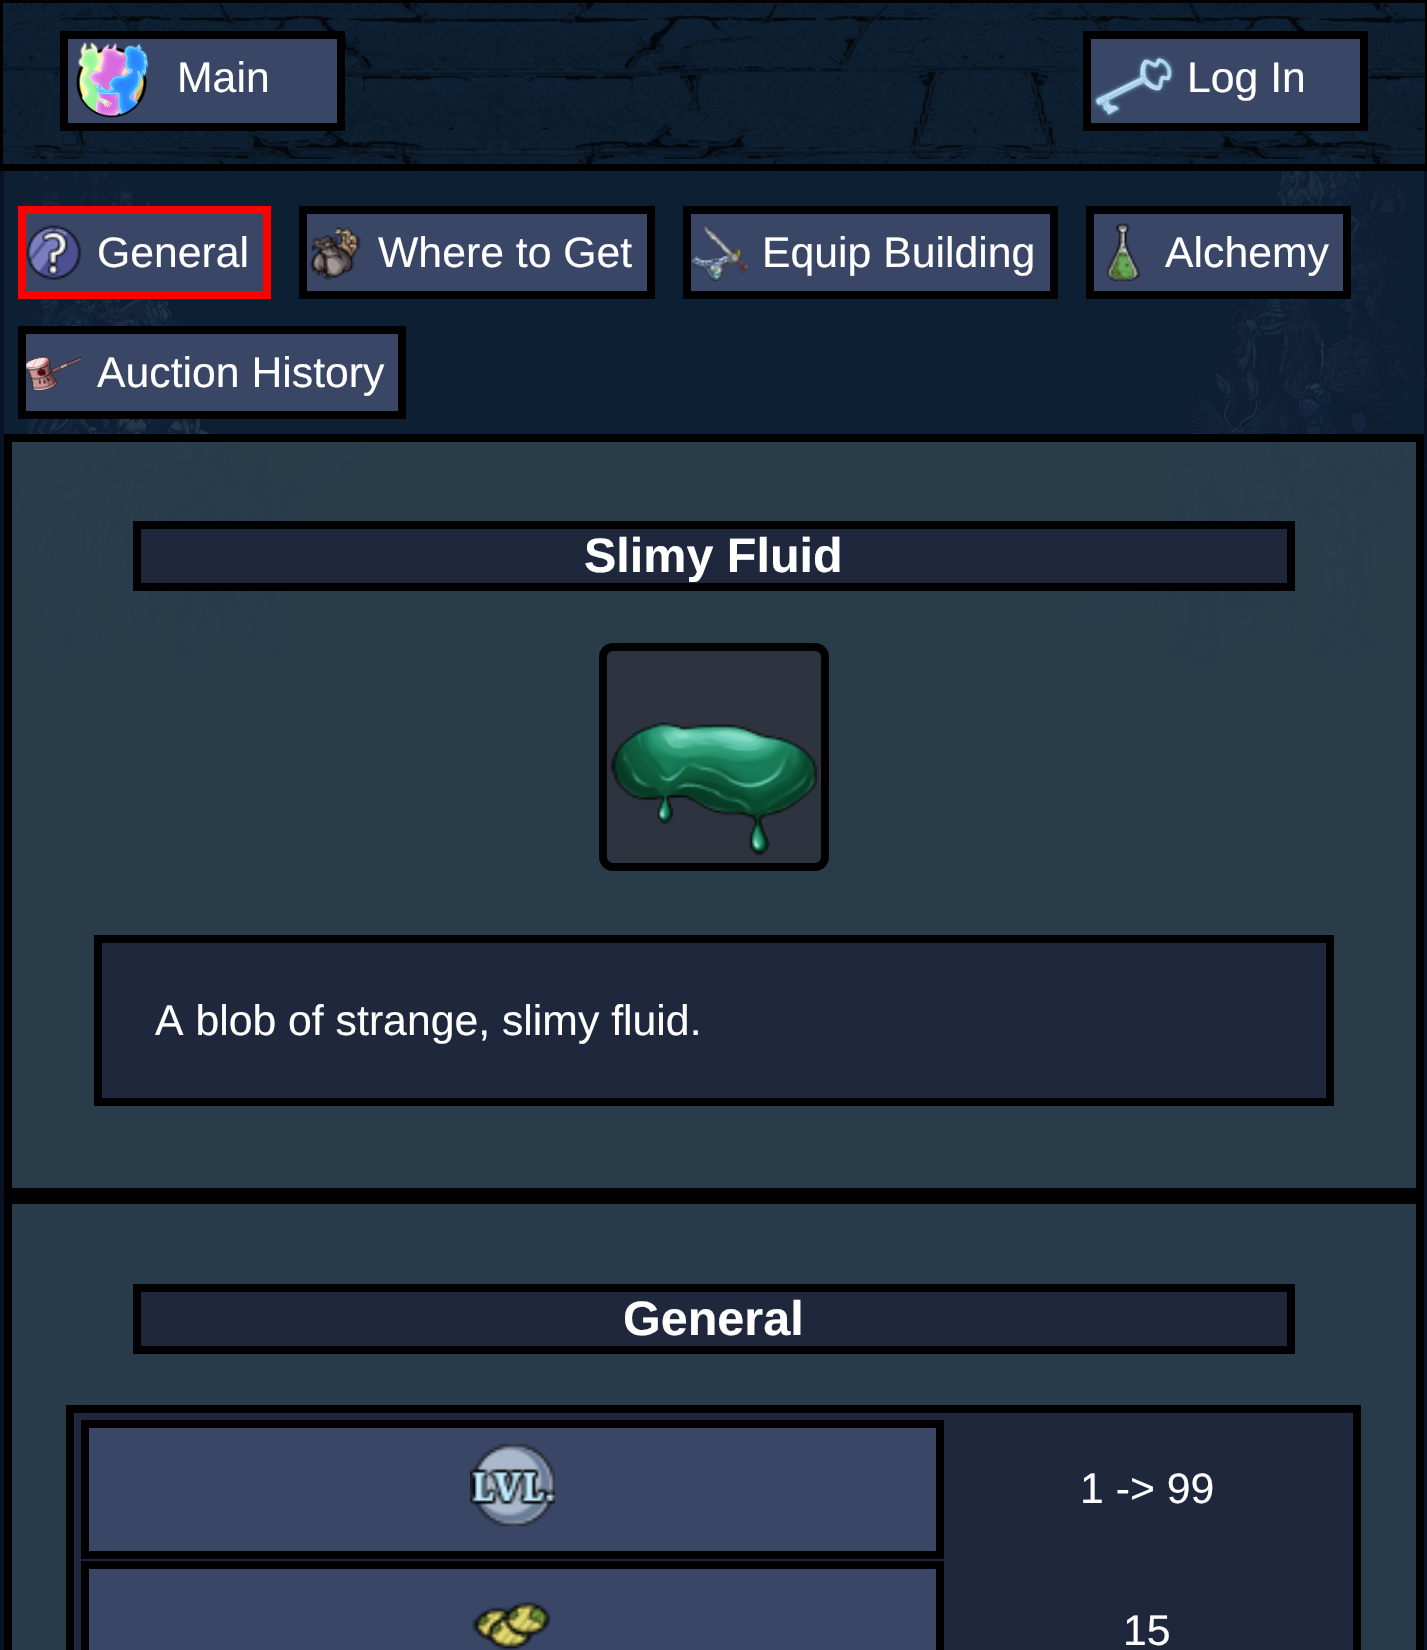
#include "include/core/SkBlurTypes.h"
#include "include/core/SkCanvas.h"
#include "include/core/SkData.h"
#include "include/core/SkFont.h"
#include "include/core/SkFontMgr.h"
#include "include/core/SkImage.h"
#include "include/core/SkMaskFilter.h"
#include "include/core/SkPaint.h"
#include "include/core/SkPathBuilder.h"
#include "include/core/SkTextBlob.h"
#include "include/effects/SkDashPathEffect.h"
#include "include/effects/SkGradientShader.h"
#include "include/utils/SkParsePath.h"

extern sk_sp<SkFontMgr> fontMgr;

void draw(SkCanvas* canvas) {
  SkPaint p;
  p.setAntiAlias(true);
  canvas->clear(SkColorSetRGB(10, 18, 37));
  canvas->drawImageRect(SkImages::DeferredFromEncodedData(SkData::MakeFromFileName("images/1.png")), SkRect::MakeLTRB(11, 41, 1427, 663), SkSamplingOptions());
  p.setColor(SkColorSetARGB(230, 14, 34, 54));
  canvas->drawRect(SkRect::MakeLTRB(3, 3, 1425, 164), p);
  p.setColor(SkColorSetARGB(204, 14, 34, 54));
  canvas->drawRect(SkRect::MakeLTRB(4, 171, 1424, 1188), p);
  canvas->drawImageRect(SkImages::DeferredFromEncodedData(SkData::MakeFromFileName("images/2.png")), SkRect::MakeLTRB(3, 3, 1425, 172), SkSamplingOptions());
  p.setColor(SK_ColorBLACK);
  canvas->drawRect(SkRect::MakeLTRB(0, 0, 1427, 3), p);
  canvas->drawRect(SkRect::MakeLTRB(1425, 0, 1427, 171), p);
  canvas->drawRect(SkRect::MakeLTRB(0, 164, 1427, 171), p);
  canvas->drawRect(SkRect::MakeLTRB(0, 0, 3, 171), p);
  p.setColor(SkColorSetRGB(58, 70, 102));
  canvas->drawRect(SkRect::MakeLTRB(68, 39, 337, 123), p);
  canvas->drawImageRect(SkImages::DeferredFromEncodedData(SkData::MakeFromFileName("images/3.png")), SkRect::MakeLTRB(76, 42, 149, 118), SkSamplingOptions());
  p.setStyle(SkPaint::kStroke_Style);
  p.setStrokeWidth(8);
  p.setColor(SK_ColorBLACK);
  canvas->drawRect(SkRect::MakeLTRB(64, 35, 341, 127), p);
  p.setStyle(SkPaint::kFill_Style);
  p.setColor(SkColorSetRGB(58, 70, 102));
  canvas->drawRect(SkRect::MakeLTRB(1091, 39, 1360, 123), p);
  canvas->drawImageRect(SkImages::DeferredFromEncodedData(SkData::MakeFromFileName("images/4.png")), SkRect::MakeLTRB(1093, 55, 1175, 117), SkSamplingOptions());
  p.setStyle(SkPaint::kStroke_Style);
  p.setColor(SK_ColorBLACK);
  canvas->drawRect(SkRect::MakeLTRB(1087, 35, 1364, 127), p);
  p.setStyle(SkPaint::kFill_Style);
  p.setColor(SkColorSetRGB(58, 70, 102));
  canvas->drawRect(SkRect::MakeLTRB(26, 214, 263, 291), p);
  canvas->drawImageRect(SkImages::DeferredFromEncodedData(SkData::MakeFromFileName("images/5.png")), SkRect::MakeLTRB(26, 225, 81, 280), SkSamplingOptions());
  p.setStyle(SkPaint::kStroke_Style);
  p.setColor(SkColorSetRGB(255, 0, 0));
  canvas->drawRect(SkRect::MakeLTRB(22, 210, 267, 295), p);
  p.setStyle(SkPaint::kFill_Style);
  p.setColor(SkColorSetRGB(58, 70, 102));
  canvas->drawRect(SkRect::MakeLTRB(307, 214, 647, 291), p);
  canvas->drawImageRect(SkImages::DeferredFromEncodedData(SkData::MakeFromFileName("images/6.png")), SkRect::MakeLTRB(309, 227, 361, 281), SkSamplingOptions());
  p.setStyle(SkPaint::kStroke_Style);
  p.setColor(SK_ColorBLACK);
  canvas->drawRect(SkRect::MakeLTRB(303, 210, 651, 295), p);
  p.setStyle(SkPaint::kFill_Style);
  p.setColor(SkColorSetRGB(58, 70, 102));
  canvas->drawRect(SkRect::MakeLTRB(691, 214, 1050, 291), p);
  canvas->drawImageRect(SkImages::DeferredFromEncodedData(SkData::MakeFromFileName("images/7.png")), SkRect::MakeLTRB(691, 224, 748, 282), SkSamplingOptions());
  p.setStyle(SkPaint::kStroke_Style);
  p.setColor(SK_ColorBLACK);
  canvas->drawRect(SkRect::MakeLTRB(687, 210, 1054, 295), p);
  p.setStyle(SkPaint::kFill_Style);
  p.setColor(SkColorSetRGB(58, 70, 102));
  canvas->drawRect(SkRect::MakeLTRB(1094, 214, 1343, 291), p);
  canvas->drawImageRect(SkImages::DeferredFromEncodedData(SkData::MakeFromFileName("images/8.png")), SkRect::MakeLTRB(1106, 223, 1141, 282), SkSamplingOptions());
  p.setStyle(SkPaint::kStroke_Style);
  p.setColor(SK_ColorBLACK);
  canvas->drawRect(SkRect::MakeLTRB(1090, 210, 1347, 295), p);
  p.setStyle(SkPaint::kFill_Style);
  p.setColor(SkColorSetRGB(58, 70, 102));
  canvas->drawRect(SkRect::MakeLTRB(26, 334, 398, 411), p);
  canvas->drawImageRect(SkImages::DeferredFromEncodedData(SkData::MakeFromFileName("images/9.png")), SkRect::MakeLTRB(26, 356, 83, 391), SkSamplingOptions());
  p.setStyle(SkPaint::kStroke_Style);
  p.setColor(SK_ColorBLACK);
  canvas->drawRect(SkRect::MakeLTRB(22, 330, 402, 415), p);
  p.setStyle(SkPaint::kFill_Style);
  p.setColor(SkColorSetARGB(230, 42, 62, 77));
  canvas->drawRect(SkRect::MakeLTRB(8, 438, 1420, 1192), p);
  p.setStyle(SkPaint::kStroke_Style);
  p.setColor(SK_ColorBLACK);
  canvas->drawRect(SkRect::MakeLTRB(8, 438, 1420, 1192), p);
  p.setStyle(SkPaint::kFill_Style);
  p.setColor(SkColorSetRGB(31, 39, 60));
  canvas->drawRect(SkRect::MakeLTRB(137, 525, 1291, 587), p);
  p.setStyle(SkPaint::kStroke_Style);
  p.setColor(SK_ColorBLACK);
  canvas->drawRect(SkRect::MakeLTRB(137, 525, 1291, 587), p);
  p.setStyle(SkPaint::kFill_Style);
  p.setColor(SkColorSetRGB(45, 51, 63));
  canvas->drawRoundRect(SkRect::MakeLTRB(603, 647, 825, 867), 10, 10, p);
  p.setStyle(SkPaint::kStroke_Style);
  p.setColor(SK_ColorBLACK);
  canvas->drawRoundRect(SkRect::MakeLTRB(603, 647, 825, 867), 10, 10, p);
  canvas->drawImageRect(SkImages::DeferredFromEncodedData(SkData::MakeFromFileName("images/10.png")), SkRect::MakeLTRB(610, 722, 818, 856), SkSamplingOptions());
  p.setStyle(SkPaint::kFill_Style);
  p.setColor(SkColorSetRGB(31, 39, 60));
  canvas->drawRect(SkRect::MakeLTRB(98, 939, 1330, 1102), p);
  p.setStyle(SkPaint::kStroke_Style);
  p.setColor(SK_ColorBLACK);
  canvas->drawRect(SkRect::MakeLTRB(98, 939, 1330, 1102), p);
  p.setStyle(SkPaint::kFill_Style);
  p.setColor(SkColorSetRGB(39, 59, 74));
  canvas->drawRect(SkRect::MakeLTRB(8, 1200, 1420, 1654), p);
  p.setStyle(SkPaint::kStroke_Style);
  p.setColor(SK_ColorBLACK);
  canvas->drawRect(SkRect::MakeLTRB(8, 1200, 1420, 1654), p);
  p.setStyle(SkPaint::kFill_Style);
  p.setColor(SkColorSetRGB(31, 39, 60));
  canvas->drawRect(SkRect::MakeLTRB(137, 1288, 1291, 1350), p);
  p.setStyle(SkPaint::kStroke_Style);
  p.setColor(SK_ColorBLACK);
  canvas->drawRect(SkRect::MakeLTRB(137, 1288, 1291, 1350), p);
  p.setStyle(SkPaint::kFill_Style);
  p.setColor(SkColorSetRGB(31, 39, 60));
  canvas->drawRect(SkRect::MakeLTRB(70, 1409, 1357, 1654), p);
  p.setStyle(SkPaint::kStroke_Style);
  p.setColor(SK_ColorBLACK);
  canvas->drawRect(SkRect::MakeLTRB(70, 1409, 1357, 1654), p);
  p.setStyle(SkPaint::kFill_Style);
  p.setColor(SkColorSetRGB(58, 70, 102));
  canvas->drawRect(SkRect::MakeLTRB(85, 1424, 940, 1555), p);
  p.setStyle(SkPaint::kStroke_Style);
  p.setColor(SK_ColorBLACK);
  canvas->drawRect(SkRect::MakeLTRB(85, 1424, 940, 1555), p);
  canvas->drawImageRect(SkImages::DeferredFromEncodedData(SkData::MakeFromFileName("images/11.png")), SkRect::MakeLTRB(470, 1443, 555, 1527), SkSamplingOptions());
  p.setStyle(SkPaint::kFill_Style);
  p.setColor(SkColorSetRGB(58, 70, 102));
  canvas->drawRect(SkRect::MakeLTRB(85, 1565, 940, 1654), p);
  p.setStyle(SkPaint::kStroke_Style);
  p.setColor(SK_ColorBLACK);
  canvas->drawRect(SkRect::MakeLTRB(85, 1565, 940, 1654), p);
  canvas->drawImageRect(SkImages::DeferredFromEncodedData(SkData::MakeFromFileName("images/12.png")), SkRect::MakeLTRB(472, 1602, 551, 1650), SkSamplingOptions());
  SkFont font1(fontMgr->matchFamilyStyle("Liberation Sans", SkFontStyle::Normal()), 42.75f);
  font1.setSubpixel(true);
  p.setStyle(SkPaint::kFill_Style);
  p.setColor(SK_ColorWHITE);
  canvas->drawString("Main", 177, 92, font1, p);
  canvas->drawString("Log In", 1187, 92, font1, p);
  canvas->drawString("General", 97, 267, font1, p);
  canvas->drawString("Where to Get", 378, 267, font1, p);
  canvas->drawString("Equip Building", 762, 267, font1, p);
  canvas->drawString("Alchemy", 1165, 267, font1, p);
  canvas->drawString("Auction History", 97, 387, font1, p);
  SkFont font2(fontMgr->matchFamilyStyle("Liberation Sans", SkFontStyle::Bold()), 48.5f);
  font2.setSubpixel(true);
  canvas->drawString("Slimy Fluid", 584, 572, font2, p);
  canvas->drawString("A blob of strange, slimy fluid.", 155, 1035, font1, p);
  canvas->drawString("General", 623, 1335, font2, p);
  canvas->drawString("1 -> 99", 1080, 1503, font1, p);
  canvas->drawString("15", 1123, 1645, font1, p);
}
